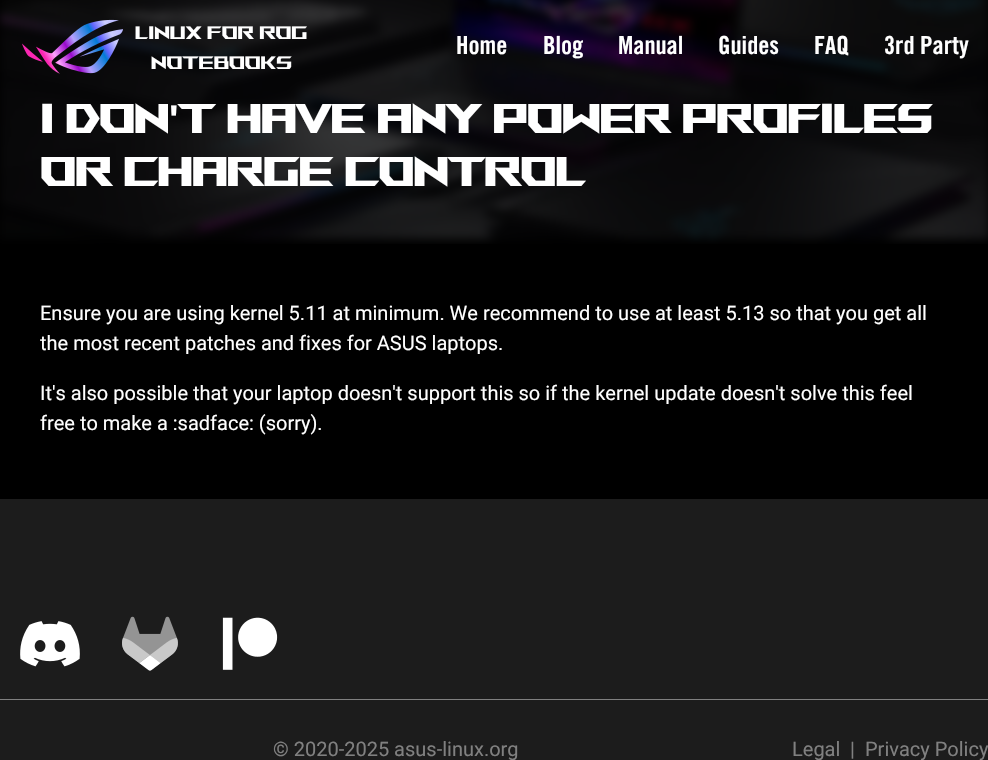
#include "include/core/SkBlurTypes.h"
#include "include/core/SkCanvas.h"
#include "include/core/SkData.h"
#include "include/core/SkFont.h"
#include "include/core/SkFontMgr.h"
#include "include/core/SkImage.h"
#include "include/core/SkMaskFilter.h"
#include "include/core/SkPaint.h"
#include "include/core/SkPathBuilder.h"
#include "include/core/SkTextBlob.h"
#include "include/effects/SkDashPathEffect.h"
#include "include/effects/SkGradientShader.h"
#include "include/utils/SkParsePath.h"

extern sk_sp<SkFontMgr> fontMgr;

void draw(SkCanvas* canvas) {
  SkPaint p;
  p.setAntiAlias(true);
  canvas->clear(SK_ColorBLACK);
  canvas->drawImageRect(SkImages::DeferredFromEncodedData(SkData::MakeFromFileName("images/2.png")), SkRect::MakeLTRB(0, 0, 988, 244), SkSamplingOptions());
  canvas->drawImageRect(SkImages::DeferredFromEncodedData(SkData::MakeFromFileName("images/1.png")), SkRect::MakeLTRB(22, 19, 123, 74), SkSamplingOptions());
  p.setColor(SkColorSetRGB(28, 28, 28));
  canvas->drawRect(SkRect::MakeLTRB(0, 499, 988, 760), p);
  canvas->drawImageRect(SkImages::DeferredFromEncodedData(SkData::MakeFromFileName("images/3.png")), SkRect::MakeLTRB(20, 621, 80, 667), SkSamplingOptions());
  canvas->drawImageRect(SkImages::DeferredFromEncodedData(SkData::MakeFromFileName("images/4.png")), SkRect::MakeLTRB(122, 616, 178, 671), SkSamplingOptions());
  canvas->drawImageRect(SkImages::DeferredFromEncodedData(SkData::MakeFromFileName("images/5.png")), SkRect::MakeLTRB(222, 617, 278, 670), SkSamplingOptions());
  p.setColor(SkColorSetRGB(128, 128, 128));
  canvas->drawRect(SkRect::MakeLTRB(0, 699, 988, 700), p);
  SkFont font1(fontMgr->matchFamilyStyle("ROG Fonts", SkFontStyle::Normal()), 18);
  font1.setSubpixel(true);
  p.setColor(SK_ColorWHITE);
  canvas->drawString("Linux for ROG", 135, 39, font1, p);
  canvas->drawString("Notebooks", 151, 69, font1, p);
  SkFont font2(fontMgr->matchFamilyStyle("Trade Gothic", SkFontStyle::Bold()), 25);
  font2.setSubpixel(true);
  canvas->drawString("Home", 456, 54, font2, p);
  canvas->drawString("Blog", 543, 54, font2, p);
  canvas->drawString("Manual", 618, 54, font2, p);
  canvas->drawString("Guides", 718, 54, font2, p);
  canvas->drawString("FAQ", 814, 54, font2, p);
  canvas->drawString("3rd Party", 884, 54, font2, p);
  SkFont font3(fontMgr->matchFamilyStyle("ROG Fonts", SkFontStyle::Bold()), 40);
  font3.setSubpixel(true);
  canvas->drawString("I don", 40, 133, font3, p);
  SkFont font4(fontMgr->matchFamilyStyle("Liberation Sans", SkFontStyle::Bold()), 40);
  font4.setSubpixel(true);
  canvas->drawString("'", 169, 133, font4, p);
  canvas->drawString("t have any power profiles", 178, 133, font3, p);
  canvas->drawString("or charge control", 40, 186, font3, p);
  SkFont font5(fontMgr->matchFamilyStyle("Roboto", SkFontStyle::Normal()), 20);
  font5.setSubpixel(true);
  canvas->drawString("Ensure you are using kernel 5.11 at minimum. We recommend to use at least 5.13 so that you get all", 40, 320, font5, p);
  canvas->drawString("the most recent patches and fixes for ASUS laptops.", 40, 350, font5, p);
  canvas->drawString("It's also possible that your laptop doesn't support this so if the kernel update doesn't solve this feel", 40, 400, font5, p);
  canvas->drawString("free to make a :sadface: (sorry).", 40, 430, font5, p);
  p.setColor(SkColorSetRGB(128, 128, 128));
  canvas->drawString("© 2020-2025 asus-linux.org", 273, 756, font5, p);
  canvas->drawString("Legal", 792, 756, font5, p);
  canvas->drawString("|", 850, 756, font5, p);
  canvas->drawString("Privacy Policy", 865, 756, font5, p);
}
